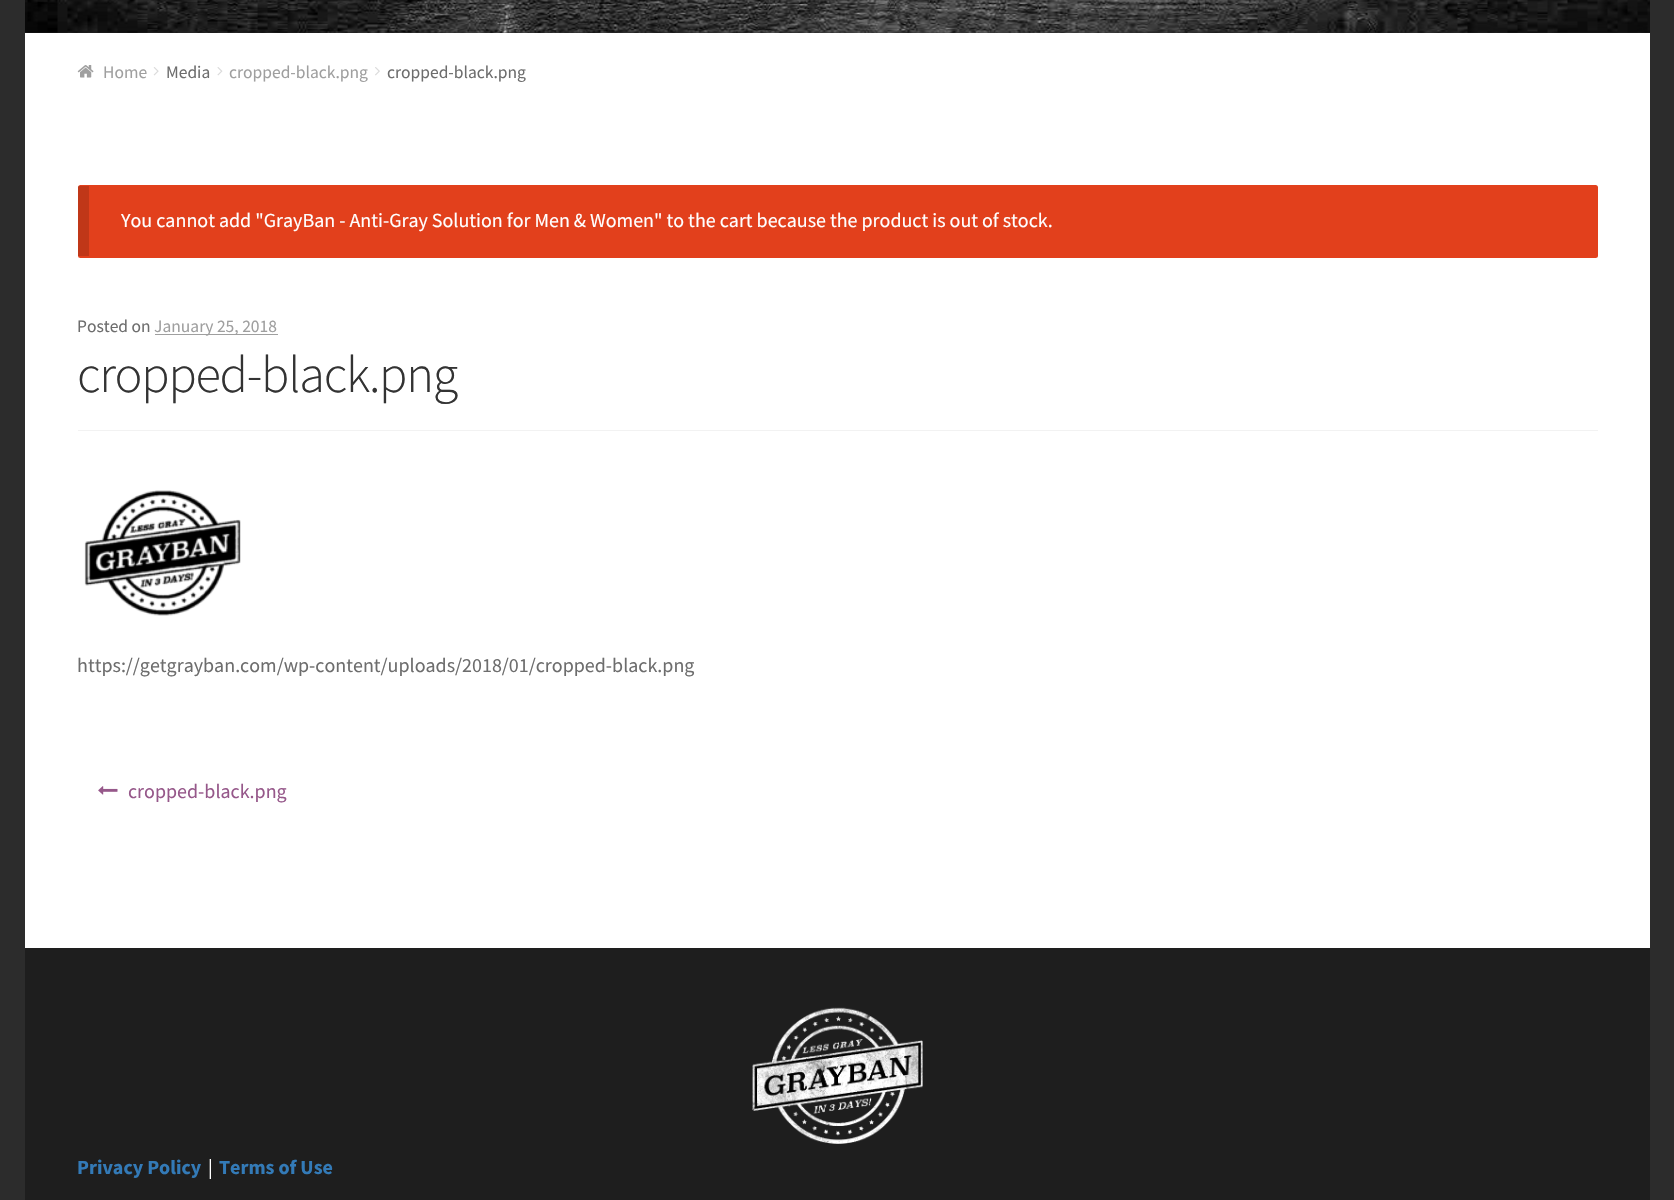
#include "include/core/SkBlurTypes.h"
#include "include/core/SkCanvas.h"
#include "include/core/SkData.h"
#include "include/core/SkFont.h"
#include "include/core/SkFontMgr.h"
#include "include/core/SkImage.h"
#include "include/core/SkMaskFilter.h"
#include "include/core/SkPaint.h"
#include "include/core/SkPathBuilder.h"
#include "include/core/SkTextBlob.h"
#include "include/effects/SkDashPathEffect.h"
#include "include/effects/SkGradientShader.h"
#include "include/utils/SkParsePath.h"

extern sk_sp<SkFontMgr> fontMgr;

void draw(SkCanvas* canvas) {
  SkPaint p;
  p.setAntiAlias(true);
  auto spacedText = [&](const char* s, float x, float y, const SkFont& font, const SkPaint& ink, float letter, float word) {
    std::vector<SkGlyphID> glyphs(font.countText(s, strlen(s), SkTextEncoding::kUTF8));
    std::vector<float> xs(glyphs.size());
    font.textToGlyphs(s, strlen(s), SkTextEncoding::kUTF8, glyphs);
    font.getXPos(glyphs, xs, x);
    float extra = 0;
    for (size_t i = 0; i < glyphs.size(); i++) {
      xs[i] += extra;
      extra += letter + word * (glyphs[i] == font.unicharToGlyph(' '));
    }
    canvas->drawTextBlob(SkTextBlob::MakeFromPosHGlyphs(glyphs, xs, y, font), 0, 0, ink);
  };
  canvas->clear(SkColorSetRGB(44, 44, 44));
  canvas->drawImageRect(SkImages::DeferredFromEncodedData(SkData::MakeFromFileName("images/1.png")), SkRect::MakeLTRB(25, 0, 1650, 33), SkSamplingOptions());
  p.setColor(SK_ColorWHITE);
  canvas->drawRect(SkRect::MakeLTRB(25, 33, 1650, 948), p);
  canvas->drawImageRect(SkImages::DeferredFromEncodedData(SkData::MakeFromFileName("images/2.png")), SkRect::MakeLTRB(77, 65, 94, 78), SkSamplingOptions());
  canvas->drawImageRect(SkImages::DeferredFromEncodedData(SkData::MakeFromFileName("images/3.png")), SkRect::MakeLTRB(153, 67, 159, 76), SkSamplingOptions());
  canvas->drawImageRect(SkImages::DeferredFromEncodedData(SkData::MakeFromFileName("images/4.png")), SkRect::MakeLTRB(217, 67, 223, 76), SkSamplingOptions());
  canvas->drawImageRect(SkImages::DeferredFromEncodedData(SkData::MakeFromFileName("images/5.png")), SkRect::MakeLTRB(375, 67, 380, 76), SkSamplingOptions());
  p.setColor(SkColorSetRGB(226, 64, 28));
  canvas->drawRoundRect(SkRect::MakeLTRB(78, 185, 1598, 258), 2.5f, 2.5f, p);
  p.setColor(SkColorSetARGB(38, 0, 0, 0));
  canvas->drawRect(SkRect::MakeLTRB(78, 186, 89, 256), p);
  p.setColor(SkColorSetRGB(242, 242, 242));
  canvas->drawRect(SkRect::MakeLTRB(78, 430, 1598, 431), p);
  p.setColor(SkColorSetRGB(159, 159, 159));
  canvas->drawRect(SkRect::MakeLTRB(155, 334, 278, 335), p);
  canvas->drawImageRect(SkImages::DeferredFromEncodedData(SkData::MakeFromFileName("images/6.png")), SkRect::MakeLTRB(84, 490, 241, 616), SkSamplingOptions());
  canvas->drawImageRect(SkImages::DeferredFromEncodedData(SkData::MakeFromFileName("images/7.png")), SkRect::MakeLTRB(98, 786, 118, 795), SkSamplingOptions());
  p.setColor(SkColorSetRGB(30, 30, 30));
  canvas->drawRect(SkRect::MakeLTRB(25, 948, 1650, 1200), p);
  canvas->drawImageRect(SkImages::DeferredFromEncodedData(SkData::MakeFromFileName("images/8.png")), SkRect::MakeLTRB(752, 1007, 923, 1144), SkSamplingOptions());
  SkFont font1(fontMgr->matchFamilyStyle("Source Sans Pro", SkFontStyle::Normal()), 17.5f);
  font1.setSubpixel(true);
  p.setColor(SkColorSetRGB(159, 159, 159));
  canvas->drawString("Home", 103, 78, font1, p);
  p.setColor(SkColorSetRGB(109, 109, 109));
  canvas->drawString("Media", 166, 78, font1, p);
  p.setColor(SkColorSetRGB(159, 159, 159));
  canvas->drawString("cropped-black.png", 229, 78, font1, p);
  p.setColor(SkColorSetRGB(109, 109, 109));
  canvas->drawString("cropped-black.png", 387, 78, font1, p);
  SkFont font2(fontMgr->matchFamilyStyle("Source Sans Pro", SkFontStyle::Normal()), 20);
  font2.setSubpixel(true);
  p.setColor(SK_ColorWHITE);
  canvas->drawString("You cannot add \"GrayBan - Anti-Gray Solution for Men & Women\" to the cart because the product is out of stock.", 121, 227, font2, p);
  p.setColor(SkColorSetRGB(109, 109, 109));
  canvas->drawString("Posted on", 77, 332, font1, p);
  p.setColor(SkColorSetRGB(159, 159, 159));
  canvas->drawString("January 25, 2018", 154, 332, font1, p);
  SkFont font3(fontMgr->matchFamilyStyle("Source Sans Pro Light", SkFontStyle(300, SkFontStyle::kNormal_Width, SkFontStyle::kUpright_Slant)), 52.25f);
  font3.setSubpixel(true);
  p.setColor(SkColorSetRGB(51, 51, 51));
  spacedText("cropped-black.png", 77, 392, font3, p, -1.25f, 0);
  p.setColor(SkColorSetRGB(109, 109, 109));
  canvas->drawString("https://getgrayban.com/wp-content/uploads/2018/01/cropped-black.png", 77, 672, font2, p);
  p.setColor(SkColorSetRGB(150, 88, 138));
  canvas->drawString("cropped-black.png", 128, 798, font2, p);
  SkFont font4(fontMgr->matchFamilyStyle("Source Sans Pro", SkFontStyle::Bold()), 20);
  font4.setSubpixel(true);
  p.setColor(SkColorSetRGB(51, 122, 183));
  canvas->drawString("Privacy Policy", 77, 1174, font4, p);
  p.setColor(SK_ColorWHITE);
  canvas->drawString("|", 208, 1174, font2, p);
  p.setColor(SkColorSetRGB(51, 122, 183));
  canvas->drawString("Terms of Use", 219, 1174, font4, p);
}
